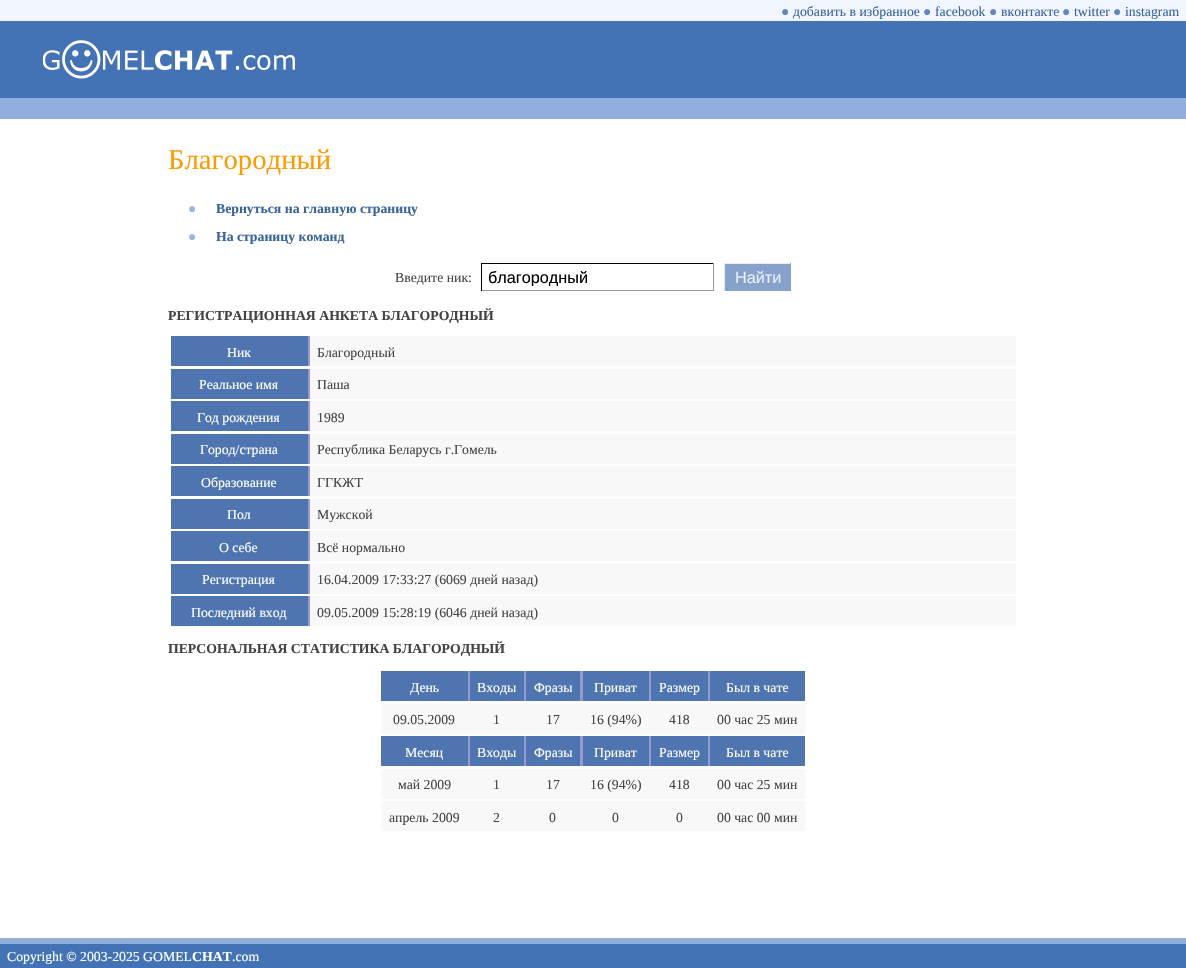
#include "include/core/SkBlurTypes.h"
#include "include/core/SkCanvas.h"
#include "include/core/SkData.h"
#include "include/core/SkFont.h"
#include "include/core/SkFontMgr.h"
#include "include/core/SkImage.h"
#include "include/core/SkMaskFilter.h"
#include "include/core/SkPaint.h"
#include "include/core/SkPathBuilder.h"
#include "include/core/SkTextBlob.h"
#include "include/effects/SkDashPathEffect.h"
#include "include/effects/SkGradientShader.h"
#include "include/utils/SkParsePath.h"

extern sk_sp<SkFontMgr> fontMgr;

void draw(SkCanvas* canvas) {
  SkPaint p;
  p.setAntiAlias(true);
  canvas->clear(SK_ColorWHITE);
  p.setColor(SkColorSetRGB(240, 245, 255));
  canvas->drawRect(SkRect::MakeLTRB(0, 0, 1186, 21), p);
  p.setColor(SkColorSetRGB(67, 115, 181));
  canvas->drawRect(SkRect::MakeLTRB(0, 21, 1186, 98), p);
  canvas->drawImageRect(SkImages::DeferredFromEncodedData(SkData::MakeFromFileName("images/1.png")), SkRect::MakeLTRB(43, 40, 295, 79), SkSamplingOptions());
  p.setColor(SkColorSetRGB(144, 175, 221));
  canvas->drawRect(SkRect::MakeLTRB(0, 98, 1186, 119), p);
  p.setColor(SK_ColorBLACK);
  canvas->drawRect(SkRect::MakeLTRB(481, 263, 714, 264), p);
  p.setColor(SkColorSetRGB(153, 153, 153));
  canvas->drawRect(SkRect::MakeLTRB(713, 263, 714, 291), p);
  canvas->drawRect(SkRect::MakeLTRB(481, 290, 714, 291), p);
  p.setColor(SK_ColorBLACK);
  canvas->drawRect(SkRect::MakeLTRB(481, 263, 482, 291), p);
  p.setColor(SkColorSetRGB(134, 162, 202));
  canvas->drawRect(SkRect::MakeLTRB(725, 264, 790, 291), p);
  p.setColor(SkColorSetRGB(229, 237, 250));
  canvas->drawRect(SkRect::MakeLTRB(724, 263, 791, 264), p);
  p.setColor(SkColorSetRGB(134, 162, 202));
  canvas->drawRect(SkRect::MakeLTRB(790, 263, 791, 291), p);
  p.setColor(SkColorSetRGB(229, 237, 250));
  canvas->drawRect(SkRect::MakeLTRB(724, 263, 725, 291), p);
  p.setColor(SkColorSetRGB(153, 153, 204));
  canvas->drawRect(SkRect::MakeLTRB(308, 336, 310, 366), p);
  p.setColor(SkColorSetRGB(78, 117, 176));
  canvas->drawRect(SkRect::MakeLTRB(171, 336, 308, 366), p);
  p.setColor(SkColorSetRGB(248, 248, 248));
  canvas->drawRect(SkRect::MakeLTRB(310, 336, 1016, 366), p);
  p.setColor(SkColorSetRGB(153, 153, 204));
  canvas->drawRect(SkRect::MakeLTRB(308, 369, 310, 399), p);
  p.setColor(SkColorSetRGB(78, 117, 176));
  canvas->drawRect(SkRect::MakeLTRB(171, 369, 308, 399), p);
  p.setColor(SkColorSetRGB(248, 248, 248));
  canvas->drawRect(SkRect::MakeLTRB(310, 369, 1016, 399), p);
  p.setColor(SkColorSetRGB(153, 153, 204));
  canvas->drawRect(SkRect::MakeLTRB(308, 401, 310, 431), p);
  p.setColor(SkColorSetRGB(78, 117, 176));
  canvas->drawRect(SkRect::MakeLTRB(171, 401, 308, 431), p);
  p.setColor(SkColorSetRGB(248, 248, 248));
  canvas->drawRect(SkRect::MakeLTRB(310, 401, 1016, 431), p);
  p.setColor(SkColorSetRGB(153, 153, 204));
  canvas->drawRect(SkRect::MakeLTRB(308, 434, 310, 464), p);
  p.setColor(SkColorSetRGB(78, 117, 176));
  canvas->drawRect(SkRect::MakeLTRB(171, 434, 308, 464), p);
  p.setColor(SkColorSetRGB(248, 248, 248));
  canvas->drawRect(SkRect::MakeLTRB(310, 434, 1016, 464), p);
  p.setColor(SkColorSetRGB(153, 153, 204));
  canvas->drawRect(SkRect::MakeLTRB(308, 466, 310, 496), p);
  p.setColor(SkColorSetRGB(78, 117, 176));
  canvas->drawRect(SkRect::MakeLTRB(171, 466, 308, 496), p);
  p.setColor(SkColorSetRGB(248, 248, 248));
  canvas->drawRect(SkRect::MakeLTRB(310, 466, 1016, 496), p);
  p.setColor(SkColorSetRGB(153, 153, 204));
  canvas->drawRect(SkRect::MakeLTRB(308, 499, 310, 529), p);
  p.setColor(SkColorSetRGB(78, 117, 176));
  canvas->drawRect(SkRect::MakeLTRB(171, 499, 308, 529), p);
  p.setColor(SkColorSetRGB(248, 248, 248));
  canvas->drawRect(SkRect::MakeLTRB(310, 499, 1016, 529), p);
  p.setColor(SkColorSetRGB(153, 153, 204));
  canvas->drawRect(SkRect::MakeLTRB(308, 531, 310, 561), p);
  p.setColor(SkColorSetRGB(78, 117, 176));
  canvas->drawRect(SkRect::MakeLTRB(171, 531, 308, 561), p);
  p.setColor(SkColorSetRGB(248, 248, 248));
  canvas->drawRect(SkRect::MakeLTRB(310, 531, 1016, 561), p);
  p.setColor(SkColorSetRGB(153, 153, 204));
  canvas->drawRect(SkRect::MakeLTRB(308, 564, 310, 594), p);
  p.setColor(SkColorSetRGB(78, 117, 176));
  canvas->drawRect(SkRect::MakeLTRB(171, 564, 308, 594), p);
  p.setColor(SkColorSetRGB(248, 248, 248));
  canvas->drawRect(SkRect::MakeLTRB(310, 564, 1016, 594), p);
  p.setColor(SkColorSetRGB(153, 153, 204));
  canvas->drawRect(SkRect::MakeLTRB(308, 596, 310, 626), p);
  p.setColor(SkColorSetRGB(78, 117, 176));
  canvas->drawRect(SkRect::MakeLTRB(171, 596, 308, 626), p);
  p.setColor(SkColorSetRGB(248, 248, 248));
  canvas->drawRect(SkRect::MakeLTRB(310, 596, 1016, 626), p);
  p.setColor(SkColorSetRGB(153, 153, 204));
  canvas->drawRect(SkRect::MakeLTRB(468, 671, 710, 701), p);
  p.setColor(SkColorSetRGB(78, 117, 176));
  canvas->drawRect(SkRect::MakeLTRB(381, 671, 468, 701), p);
  canvas->drawRect(SkRect::MakeLTRB(470, 671, 524, 701), p);
  canvas->drawRect(SkRect::MakeLTRB(526, 671, 580, 701), p);
  canvas->drawRect(SkRect::MakeLTRB(583, 671, 649, 701), p);
  canvas->drawRect(SkRect::MakeLTRB(651, 671, 708, 701), p);
  canvas->drawRect(SkRect::MakeLTRB(710, 671, 805, 701), p);
  p.setColor(SkColorSetRGB(248, 248, 248));
  canvas->drawRect(SkRect::MakeLTRB(381, 704, 805, 734), p);
  p.setColor(SkColorSetRGB(153, 153, 204));
  canvas->drawRect(SkRect::MakeLTRB(468, 736, 710, 766), p);
  p.setColor(SkColorSetRGB(78, 117, 176));
  canvas->drawRect(SkRect::MakeLTRB(381, 736, 468, 766), p);
  canvas->drawRect(SkRect::MakeLTRB(470, 736, 524, 766), p);
  canvas->drawRect(SkRect::MakeLTRB(526, 736, 580, 766), p);
  canvas->drawRect(SkRect::MakeLTRB(583, 736, 649, 766), p);
  canvas->drawRect(SkRect::MakeLTRB(651, 736, 708, 766), p);
  canvas->drawRect(SkRect::MakeLTRB(710, 736, 805, 766), p);
  p.setColor(SkColorSetRGB(248, 248, 248));
  canvas->drawRect(SkRect::MakeLTRB(381, 769, 805, 799), p);
  canvas->drawRect(SkRect::MakeLTRB(381, 801, 805, 831), p);
  p.setColor(SkColorSetRGB(144, 175, 221));
  canvas->drawRect(SkRect::MakeLTRB(0, 938, 1186, 944), p);
  p.setColor(SkColorSetRGB(67, 115, 180));
  canvas->drawRect(SkRect::MakeLTRB(0, 944, 1186, 968), p);
  SkFont font1(fontMgr->matchFamilyStyle("Liberation Serif", SkFontStyle::Normal()), 13.75f);
  font1.setSubpixel(true);
  p.setColor(SkColorSetRGB(98, 135, 191));
  canvas->drawString("●", 781, 16, font1, p);
  p.setColor(SkColorSetRGB(57, 99, 155));
  canvas->drawString("добавить в избранное", 793, 16, font1, p);
  p.setColor(SkColorSetRGB(98, 135, 191));
  canvas->drawString("●", 923, 16, font1, p);
  p.setColor(SkColorSetRGB(57, 99, 155));
  canvas->drawString("facebook", 935, 16, font1, p);
  p.setColor(SkColorSetRGB(98, 135, 191));
  canvas->drawString("●", 989, 16, font1, p);
  p.setColor(SkColorSetRGB(57, 99, 155));
  canvas->drawString("вконтакте", 1001, 16, font1, p);
  p.setColor(SkColorSetRGB(98, 135, 191));
  canvas->drawString("●", 1062, 16, font1, p);
  p.setColor(SkColorSetRGB(57, 99, 155));
  canvas->drawString("twitter", 1074, 16, font1, p);
  p.setColor(SkColorSetRGB(98, 135, 191));
  canvas->drawString("●", 1113, 16, font1, p);
  p.setColor(SkColorSetRGB(57, 99, 155));
  canvas->drawString("instagram", 1125, 16, font1, p);
  SkFont font2(fontMgr->matchFamilyStyle("Liberation Serif", SkFontStyle::Normal()), 28.75f);
  font2.setSubpixel(true);
  p.setColor(SkColorSetRGB(255, 153, 0));
  canvas->drawString("Благородный", 168, 169, font2, p);
  p.setColor(SkColorSetRGB(155, 181, 222));
  canvas->drawString("●", 188, 213, font1, p);
  SkFont font3(fontMgr->matchFamilyStyle("Liberation Serif", SkFontStyle::Bold()), 13.75f);
  font3.setSubpixel(true);
  p.setColor(SkColorSetRGB(57, 99, 155));
  canvas->drawString("Вернуться на главную страницу", 216, 213, font3, p);
  p.setColor(SkColorSetRGB(155, 181, 222));
  canvas->drawString("●", 188, 241, font1, p);
  p.setColor(SkColorSetRGB(57, 99, 155));
  canvas->drawString("На страницу команд", 216, 241, font3, p);
  p.setColor(SkColorSetRGB(68, 68, 68));
  canvas->drawString("Введите ник:", 395, 282, font1, p);
  canvas->save();
  canvas->clipRect(SkRect::MakeLTRB(488, 268, 708, 286));
  SkFont font4(fontMgr->matchFamilyStyle("Liberation Sans", SkFontStyle::Normal()), 16.25f);
  font4.setSubpixel(true);
  p.setColor(SK_ColorBLACK);
  canvas->drawString("благородный", 488, 283, font4, p);
  canvas->restore();
  p.setColor(SkColorSetRGB(229, 237, 250));
  canvas->drawString("Найти", 735, 283, font4, p);
  p.setColor(SkColorSetRGB(68, 68, 68));
  canvas->drawString("РЕГИСТРАЦИОННАЯ АНКЕТА БЛАГОРОДНЫЙ", 168, 320, font3, p);
  p.setColor(SK_ColorWHITE);
  canvas->drawString("Ник", 227, 357, font1, p);
  p.setColor(SkColorSetRGB(68, 68, 68));
  canvas->drawString("Благородный", 317, 357, font1, p);
  p.setColor(SK_ColorWHITE);
  canvas->drawString("Реальное имя", 199, 389, font1, p);
  p.setColor(SkColorSetRGB(68, 68, 68));
  canvas->drawString("Паша", 317, 389, font1, p);
  p.setColor(SK_ColorWHITE);
  canvas->drawString("Год рождения", 197, 422, font1, p);
  p.setColor(SkColorSetRGB(68, 68, 68));
  canvas->drawString("1989", 317, 422, font1, p);
  p.setColor(SK_ColorWHITE);
  canvas->drawString("Город/страна", 200, 454, font1, p);
  p.setColor(SkColorSetRGB(68, 68, 68));
  canvas->drawString("Республика Беларусь г.Гомель", 317, 454, font1, p);
  p.setColor(SK_ColorWHITE);
  canvas->drawString("Образование", 201, 487, font1, p);
  p.setColor(SkColorSetRGB(68, 68, 68));
  canvas->drawString("ГГКЖТ", 317, 487, font1, p);
  p.setColor(SK_ColorWHITE);
  canvas->drawString("Пол", 227, 519, font1, p);
  p.setColor(SkColorSetRGB(68, 68, 68));
  canvas->drawString("Мужской", 317, 519, font1, p);
  p.setColor(SK_ColorWHITE);
  canvas->drawString("О себе", 219, 552, font1, p);
  p.setColor(SkColorSetRGB(68, 68, 68));
  canvas->drawString("Всё нормально", 317, 552, font1, p);
  p.setColor(SK_ColorWHITE);
  canvas->drawString("Регистрация", 202, 584, font1, p);
  p.setColor(SkColorSetRGB(68, 68, 68));
  canvas->drawString("16.04.2009 17:33:27 (6069 дней назад)", 317, 584, font1, p);
  p.setColor(SK_ColorWHITE);
  canvas->drawString("Последний вход", 191, 617, font1, p);
  p.setColor(SkColorSetRGB(68, 68, 68));
  canvas->drawString("09.05.2009 15:28:19 (6046 дней назад)", 317, 617, font1, p);
  canvas->drawString("ПЕРСОНАЛЬНАЯ СТАТИСТИКА БЛАГОРОДНЫЙ", 168, 653, font3, p);
  p.setColor(SK_ColorWHITE);
  canvas->drawString("День", 410, 692, font1, p);
  canvas->drawString("Входы", 477, 692, font1, p);
  canvas->drawString("Фразы", 534, 692, font1, p);
  canvas->drawString("Приват", 594, 692, font1, p);
  canvas->drawString("Размер", 659, 692, font1, p);
  canvas->drawString("Был в чате", 726, 692, font1, p);
  p.setColor(SkColorSetRGB(68, 68, 68));
  canvas->drawString("09.05.2009", 393, 724, font1, p);
  canvas->drawString("1", 493, 724, font1, p);
  canvas->drawString("17", 546, 724, font1, p);
  canvas->drawString("16 (94%)", 590, 724, font1, p);
  canvas->drawString("418", 669, 724, font1, p);
  canvas->drawString("00 час 25 мин", 717, 724, font1, p);
  p.setColor(SK_ColorWHITE);
  canvas->drawString("Месяц", 405, 757, font1, p);
  canvas->drawString("Входы", 477, 757, font1, p);
  canvas->drawString("Фразы", 534, 757, font1, p);
  canvas->drawString("Приват", 594, 757, font1, p);
  canvas->drawString("Размер", 659, 757, font1, p);
  canvas->drawString("Был в чате", 726, 757, font1, p);
  p.setColor(SkColorSetRGB(68, 68, 68));
  canvas->drawString("май 2009", 398, 789, font1, p);
  canvas->drawString("1", 493, 789, font1, p);
  canvas->drawString("17", 546, 789, font1, p);
  canvas->drawString("16 (94%)", 590, 789, font1, p);
  canvas->drawString("418", 669, 789, font1, p);
  canvas->drawString("00 час 25 мин", 717, 789, font1, p);
  canvas->drawString("апрель 2009", 389, 822, font1, p);
  canvas->drawString("2", 493, 822, font1, p);
  canvas->drawString("0", 549, 822, font1, p);
  canvas->drawString("0", 612, 822, font1, p);
  canvas->drawString("0", 676, 822, font1, p);
  canvas->drawString("00 час 00 мин", 717, 822, font1, p);
  p.setColor(SK_ColorWHITE);
  canvas->drawString("Copyright © 2003-2025 GOMEL", 7, 961, font1, p);
  canvas->drawString("CHAT", 192, 961, font3, p);
  canvas->drawString(".com", 232, 961, font1, p);
}
